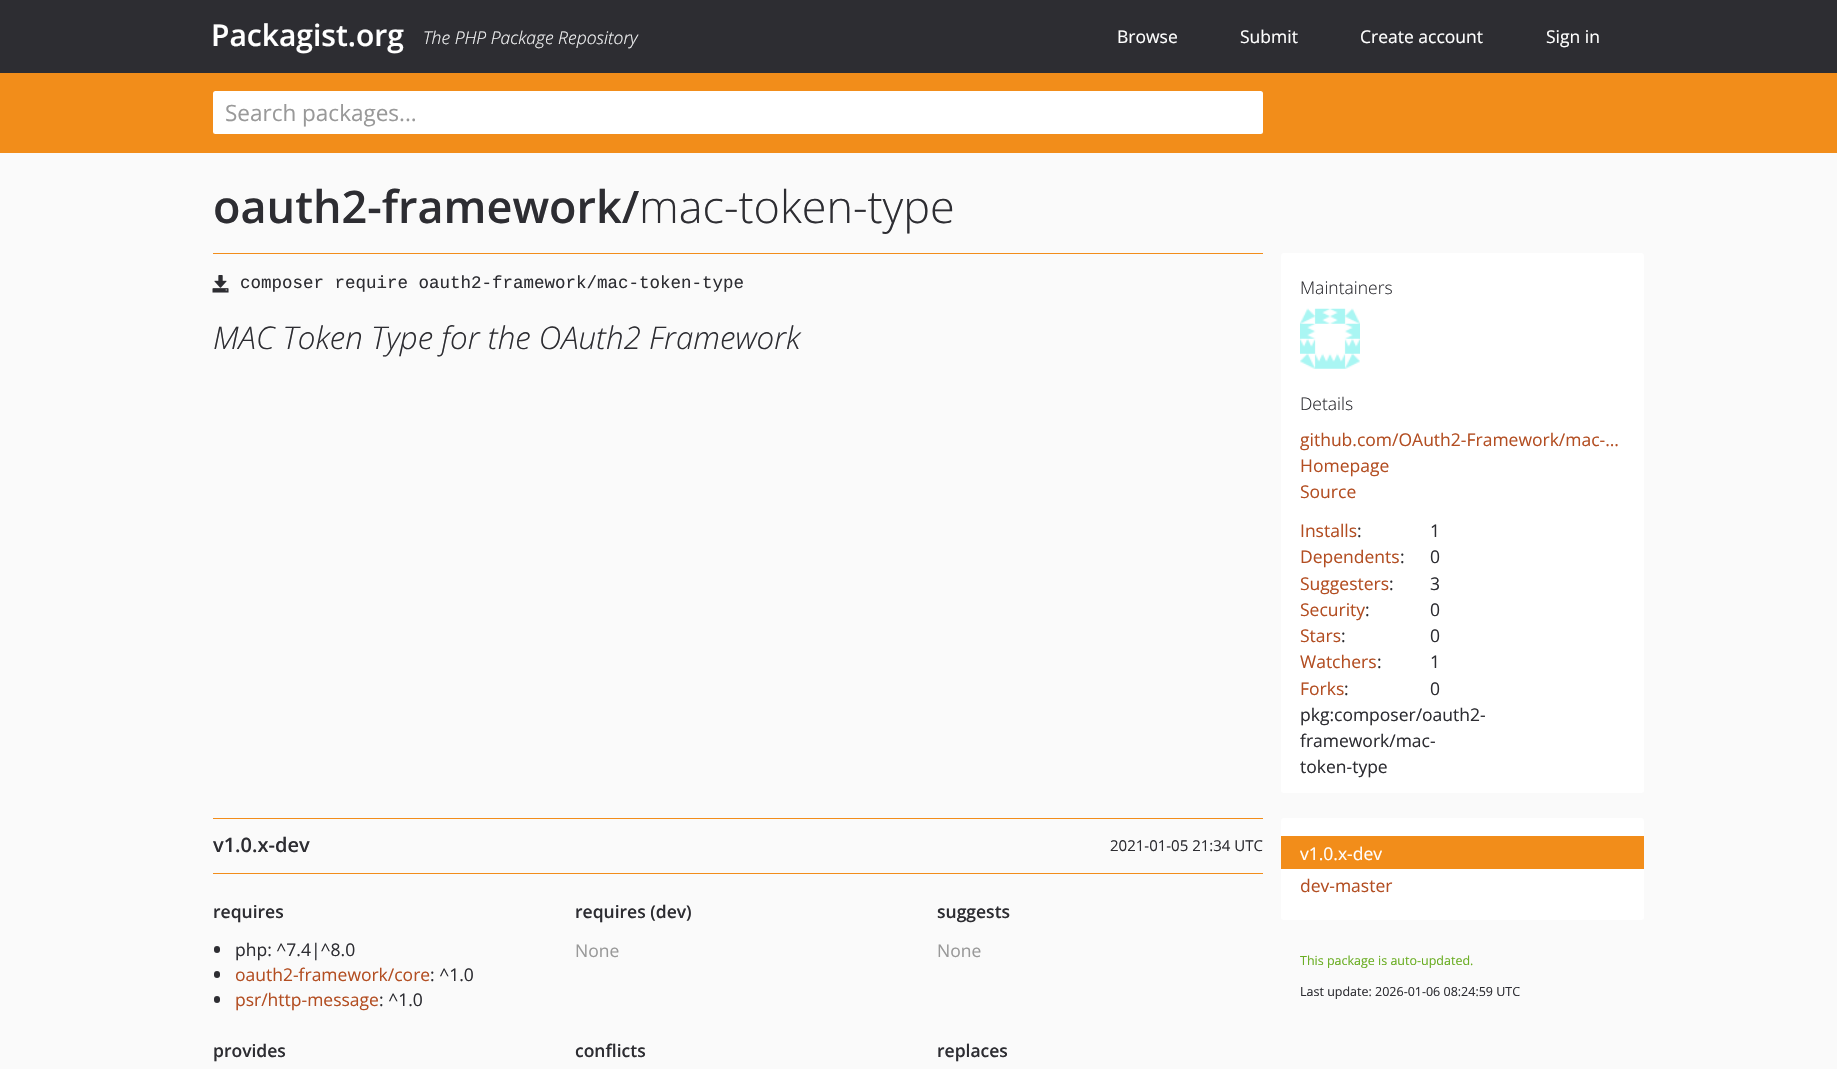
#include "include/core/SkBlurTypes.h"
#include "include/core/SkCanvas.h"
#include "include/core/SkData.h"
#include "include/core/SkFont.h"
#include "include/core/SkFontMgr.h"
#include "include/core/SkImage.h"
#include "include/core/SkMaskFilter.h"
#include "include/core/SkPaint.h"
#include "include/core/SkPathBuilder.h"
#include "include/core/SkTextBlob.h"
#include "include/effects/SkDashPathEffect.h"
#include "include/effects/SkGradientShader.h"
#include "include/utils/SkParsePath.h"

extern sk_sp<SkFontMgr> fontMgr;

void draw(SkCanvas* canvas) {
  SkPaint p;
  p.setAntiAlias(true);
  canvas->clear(SkColorSetRGB(250, 250, 250));
  p.setColor(SkColorSetRGB(45, 45, 50));
  canvas->drawRect(SkRect::MakeLTRB(0, 0, 1837, 73), p);
  p.setColor(SkColorSetRGB(242, 141, 26));
  canvas->drawRect(SkRect::MakeLTRB(0, 73, 1837, 153), p);
  p.setColor(SK_ColorWHITE);
  canvas->drawRoundRect(SkRect::MakeLTRB(213, 91, 1263, 134), 2.5f, 2.5f, p);
  p.setColor(SkColorSetRGB(242, 141, 26));
  canvas->drawRect(SkRect::MakeLTRB(213, 253, 1263, 254), p);
  canvas->drawImageRect(SkImages::DeferredFromEncodedData(SkData::MakeFromFileName("images/1.png")), SkRect::MakeLTRB(212, 275, 229, 293), SkSamplingOptions());
  p.setColor(SK_ColorWHITE);
  canvas->drawRoundRect(SkRect::MakeLTRB(1281, 253, 1644, 793), 2.5f, 2.5f, p);
  canvas->drawImageRect(SkImages::DeferredFromEncodedData(SkData::MakeFromFileName("images/2.png")), SkRect::MakeLTRB(1300, 308, 1360, 369), SkSamplingOptions());
  p.setColor(SkColorSetRGB(242, 141, 26));
  canvas->drawRect(SkRect::MakeLTRB(213, 818, 1263, 819), p);
  canvas->drawRect(SkRect::MakeLTRB(213, 873, 1263, 874), p);
  p.setColor(SkColorSetRGB(45, 45, 50));
  canvas->drawRoundRect(SkRect::MakeLTRB(214, 946, 220, 953), 3, 3, p);
  canvas->drawRoundRect(SkRect::MakeLTRB(214, 971, 220, 978), 3, 3, p);
  canvas->drawRoundRect(SkRect::MakeLTRB(214, 996, 220, 1003), 3, 3, p);
  p.setColor(SK_ColorWHITE);
  canvas->drawRoundRect(SkRect::MakeLTRB(1281, 818, 1644, 920), 2.5f, 2.5f, p);
  p.setColor(SkColorSetRGB(242, 141, 26));
  canvas->drawRect(SkRect::MakeLTRB(1281, 836, 1644, 869), p);
  SkFont font1(fontMgr->matchFamilyStyle("Open Sans", SkFontStyle(600, SkFontStyle::kNormal_Width, SkFontStyle::kUpright_Slant)), 30);
  font1.setSubpixel(true);
  p.setColor(SK_ColorWHITE);
  canvas->drawString("Packagist.org", 211, 46, font1, p);
  SkFont font2(fontMgr->matchFamilyStyle("Open Sans", SkFontStyle(300, SkFontStyle::kNormal_Width, SkFontStyle::kItalic_Slant)), 17.5f);
  font2.setSubpixel(true);
  p.setColor(SkColorSetRGB(243, 244, 245));
  canvas->drawString("The PHP Package Repository", 423, 44, font2, p);
  SkFont font3(fontMgr->matchFamilyStyle("Open Sans", SkFontStyle::Normal()), 17.5f);
  font3.setSubpixel(true);
  p.setColor(SK_ColorWHITE);
  canvas->drawString("Browse", 1117, 43, font3, p);
  canvas->drawString("Submit", 1240, 43, font3, p);
  canvas->drawString("Create account", 1360, 43, font3, p);
  canvas->drawString("Sign in", 1546, 43, font3, p);
  SkFont font4(fontMgr->matchFamilyStyle("Open Sans", SkFontStyle::Normal()), 22.5f);
  font4.setSubpixel(true);
  p.setColor(SkColorSetRGB(153, 153, 153));
  canvas->drawString("Search packages...", 225, 121, font4, p);
  SkFont font5(fontMgr->matchFamilyStyle("Open Sans", SkFontStyle(600, SkFontStyle::kNormal_Width, SkFontStyle::kUpright_Slant)), 45);
  font5.setSubpixel(true);
  p.setColor(SkColorSetRGB(45, 45, 50));
  canvas->drawString("oauth2-framework/", 213, 223, font5, p);
  SkFont font6(fontMgr->matchFamilyStyle("Open Sans", SkFontStyle(300, SkFontStyle::kNormal_Width, SkFontStyle::kUpright_Slant)), 45);
  font6.setSubpixel(true);
  canvas->drawString("mac-token-type", 639, 223, font6, p);
  SkFont font7(fontMgr->matchFamilyStyle("Liberation Mono", SkFontStyle::Normal()), 17.5f);
  font7.setSubpixel(true);
  canvas->drawString("composer require oauth2-framework/mac-token-type", 240, 288, font7, p);
  SkFont font8(fontMgr->matchFamilyStyle("Open Sans", SkFontStyle(300, SkFontStyle::kNormal_Width, SkFontStyle::kItalic_Slant)), 31.25f);
  font8.setSubpixel(true);
  canvas->drawString("MAC Token Type for the OAuth2 Framework", 213, 349, font8, p);
  SkFont font9(fontMgr->matchFamilyStyle("Open Sans", SkFontStyle(300, SkFontStyle::kNormal_Width, SkFontStyle::kUpright_Slant)), 17.5f);
  font9.setSubpixel(true);
  canvas->drawString("Maintainers", 1300, 294, font9, p);
  canvas->drawString("Details", 1300, 410, font9, p);
  p.setColor(SkColorSetRGB(179, 78, 34));
  canvas->drawString("github.com/OAuth2-Framework/mac-…", 1300, 446, font3, p);
  canvas->drawString("Homepage", 1300, 472, font3, p);
  canvas->drawString("Source", 1300, 498, font3, p);
  canvas->drawString("Installs", 1300, 537, font3, p);
  p.setColor(SkColorSetRGB(45, 45, 50));
  canvas->drawString(":", 1357, 537, font3, p);
  canvas->drawString("1", 1430, 537, font3, p);
  p.setColor(SkColorSetRGB(179, 78, 34));
  canvas->drawString("Dependents", 1300, 563, font3, p);
  p.setColor(SkColorSetRGB(45, 45, 50));
  canvas->drawString(":", 1400, 563, font3, p);
  canvas->drawString("0", 1430, 563, font3, p);
  p.setColor(SkColorSetRGB(179, 78, 34));
  canvas->drawString("Suggesters", 1300, 590, font3, p);
  p.setColor(SkColorSetRGB(45, 45, 50));
  canvas->drawString(":", 1389, 590, font3, p);
  canvas->drawString("3", 1430, 590, font3, p);
  p.setColor(SkColorSetRGB(179, 78, 34));
  canvas->drawString("Security", 1300, 616, font3, p);
  p.setColor(SkColorSetRGB(45, 45, 50));
  canvas->drawString(":", 1365, 616, font3, p);
  canvas->drawString("0", 1430, 616, font3, p);
  p.setColor(SkColorSetRGB(179, 78, 34));
  canvas->drawString("Stars", 1300, 642, font3, p);
  p.setColor(SkColorSetRGB(45, 45, 50));
  canvas->drawString(":", 1341, 642, font3, p);
  canvas->drawString("0", 1430, 642, font3, p);
  p.setColor(SkColorSetRGB(179, 78, 34));
  canvas->drawString("Watchers", 1300, 668, font3, p);
  p.setColor(SkColorSetRGB(45, 45, 50));
  canvas->drawString(":", 1377, 668, font3, p);
  canvas->drawString("1", 1430, 668, font3, p);
  p.setColor(SkColorSetRGB(179, 78, 34));
  canvas->drawString("Forks", 1300, 695, font3, p);
  p.setColor(SkColorSetRGB(45, 45, 50));
  canvas->drawString(":", 1344, 695, font3, p);
  canvas->drawString("0", 1430, 695, font3, p);
  canvas->drawString("pkg:composer/oauth2-", 1300, 721, font3, p);
  canvas->drawString("framework/mac-", 1300, 747, font3, p);
  canvas->drawString("token-type", 1300, 773, font3, p);
  SkFont font10(fontMgr->matchFamilyStyle("Open Sans", SkFontStyle(600, SkFontStyle::kNormal_Width, SkFontStyle::kUpright_Slant)), 20);
  font10.setSubpixel(true);
  canvas->drawString("v1.0.x-dev", 213, 852, font10, p);
  SkFont font11(fontMgr->matchFamilyStyle("Open Sans", SkFontStyle::Normal()), 15);
  font11.setSubpixel(true);
  canvas->drawString("2021-01-05 21:34 UTC", 1110, 851, font11, p);
  SkFont font12(fontMgr->matchFamilyStyle("Open Sans", SkFontStyle(600, SkFontStyle::kNormal_Width, SkFontStyle::kUpright_Slant)), 17.5f);
  font12.setSubpixel(true);
  canvas->drawString("requires", 213, 918, font12, p);
  canvas->drawString("php: ^7.4|^8.0", 235, 956, font3, p);
  p.setColor(SkColorSetRGB(179, 78, 34));
  canvas->drawString("oauth2-framework/core", 235, 981, font3, p);
  p.setColor(SkColorSetRGB(45, 45, 50));
  canvas->drawString(": ^1.0", 430, 981, font3, p);
  p.setColor(SkColorSetRGB(179, 78, 34));
  canvas->drawString("psr/http-message", 235, 1006, font3, p);
  p.setColor(SkColorSetRGB(45, 45, 50));
  canvas->drawString(": ^1.0", 379, 1006, font3, p);
  canvas->drawString("requires (dev)", 575, 918, font12, p);
  p.setColor(SkColorSetRGB(153, 153, 153));
  canvas->drawString("None", 575, 957, font3, p);
  p.setColor(SkColorSetRGB(45, 45, 50));
  canvas->drawString("suggests", 937, 918, font12, p);
  p.setColor(SkColorSetRGB(153, 153, 153));
  canvas->drawString("None", 937, 957, font3, p);
  p.setColor(SkColorSetRGB(45, 45, 50));
  canvas->drawString("provides", 213, 1057, font12, p);
  canvas->drawString("conflicts", 575, 1057, font12, p);
  canvas->drawString("replaces", 937, 1057, font12, p);
  p.setColor(SK_ColorWHITE);
  canvas->drawString("v1.0.x-dev", 1300, 860, font3, p);
  p.setColor(SkColorSetRGB(179, 78, 34));
  canvas->drawString("dev-master", 1300, 892, font3, p);
  SkFont font13(fontMgr->matchFamilyStyle("Open Sans", SkFontStyle::Normal()), 12.5f);
  font13.setSubpixel(true);
  p.setColor(SkColorSetRGB(105, 173, 33));
  canvas->drawString("This package is auto-updated.", 1300, 965, font13, p);
  p.setColor(SkColorSetRGB(45, 45, 50));
  canvas->drawString("Last update: 2026-01-06 08:24:59 UTC", 1300, 996, font13, p);
}
